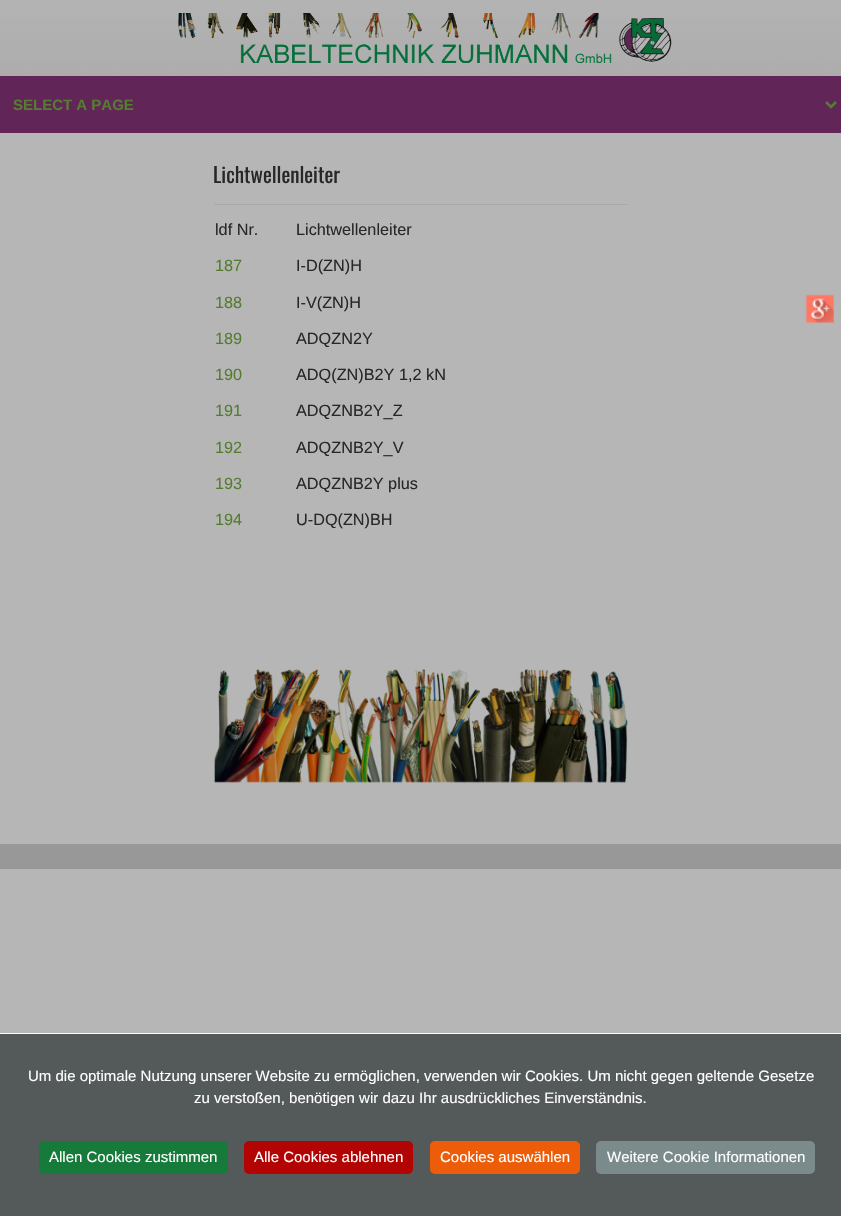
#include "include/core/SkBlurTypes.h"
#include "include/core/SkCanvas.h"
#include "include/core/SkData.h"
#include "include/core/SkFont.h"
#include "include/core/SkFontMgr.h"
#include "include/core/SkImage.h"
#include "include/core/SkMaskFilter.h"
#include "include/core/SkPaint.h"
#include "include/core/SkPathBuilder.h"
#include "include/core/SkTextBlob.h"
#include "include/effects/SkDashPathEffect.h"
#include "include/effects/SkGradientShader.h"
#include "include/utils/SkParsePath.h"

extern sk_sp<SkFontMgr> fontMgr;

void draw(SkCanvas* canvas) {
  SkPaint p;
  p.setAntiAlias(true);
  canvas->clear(SkColorSetRGB(182, 182, 182));
  canvas->drawImageRect(SkImages::DeferredFromEncodedData(SkData::MakeFromFileName("images/1.png")), SkRect::MakeLTRB(0, 0, 841, 76), SkSamplingOptions());
  canvas->drawImageRect(SkImages::DeferredFromEncodedData(SkData::MakeFromFileName("images/2.png")), SkRect::MakeLTRB(178, 13, 672, 63), SkSamplingOptions());
  p.setColor(SkColorSetRGB(98, 37, 88));
  canvas->drawRect(SkRect::MakeLTRB(0, 76, 841, 133), p);
  p.setStyle(SkPaint::kStroke_Style);
  p.setStrokeWidth(2.5f);
  p.setColor(SkColorSetRGB(84, 125, 48));
  canvas->drawPath(SkPathBuilder().moveTo(826, 102).lineTo(831, 107).lineTo(836, 102).detach(), p);
  p.setStyle(SkPaint::kFill_Style);
  p.setColor(SkColorSetRGB(170, 170, 170));
  canvas->drawRect(SkRect::MakeLTRB(214, 204, 628, 205), p);
  canvas->drawImageRect(SkImages::DeferredFromEncodedData(SkData::MakeFromFileName("images/3.png")), SkRect::MakeLTRB(214, 669, 628, 783), SkSamplingOptions());
  p.setColor(SkColorSetRGB(152, 152, 152));
  canvas->drawRect(SkRect::MakeLTRB(0, 844, 841, 869), p);
  canvas->drawImageRect(SkImages::DeferredFromEncodedData(SkData::MakeFromFileName("images/4.png")), SkRect::MakeLTRB(806, 294, 834, 323), SkSamplingOptions());
  p.setColor(SkColorSetRGB(84, 89, 89));
  canvas->drawRect(SkRect::MakeLTRB(0, 1034, 841, 1216), p);
  p.setColor(SkColorSetRGB(252, 252, 252));
  canvas->drawRect(SkRect::MakeLTRB(0, 1033, 841, 1034), p);
  p.setColor(SkColorSetRGB(22, 122, 59));
  canvas->drawRoundRect(SkRect::MakeLTRB(39, 1141, 228, 1174), 5, 5, p);
  p.setColor(SkColorSetRGB(179, 4, 4));
  canvas->drawRoundRect(SkRect::MakeLTRB(244, 1141, 413, 1174), 5, 5, p);
  p.setColor(SkColorSetRGB(237, 93, 9));
  canvas->drawRoundRect(SkRect::MakeLTRB(430, 1141, 580, 1174), 5, 5, p);
  p.setColor(SkColorSetRGB(123, 138, 139));
  canvas->drawRoundRect(SkRect::MakeLTRB(596, 1141, 815, 1174), 5, 5, p);
  SkFont font1(fontMgr->matchFamilyStyle("Liberation Sans", SkFontStyle::Bold()), 15);
  font1.setSubpixel(true);
  p.setColor(SkColorSetRGB(84, 125, 48));
  canvas->drawString("SELECT A PAGE", 13, 110, font1, p);
  SkFont font2(fontMgr->matchFamilyStyle("Oswald", SkFontStyle::Normal()), 21);
  font2.setSubpixel(true);
  p.setColor(SkColorSetRGB(39, 39, 39));
  canvas->drawString("Lichtwellenleiter", 213, 183, font2, p);
  SkFont font3(fontMgr->matchFamilyStyle("Liberation Sans", SkFontStyle::Normal()), 16.25f);
  font3.setSubpixel(true);
  canvas->drawString("ldf Nr.", 215, 235, font3, p);
  canvas->drawString("Lichtwellenleiter", 296, 235, font3, p);
  p.setColor(SkColorSetRGB(84, 125, 48));
  canvas->drawString("187", 215, 271, font3, p);
  p.setColor(SkColorSetRGB(39, 39, 39));
  canvas->drawString("I-D(ZN)H", 296, 271, font3, p);
  p.setColor(SkColorSetRGB(84, 125, 48));
  canvas->drawString("188", 215, 308, font3, p);
  p.setColor(SkColorSetRGB(39, 39, 39));
  canvas->drawString("I-V(ZN)H", 296, 308, font3, p);
  p.setColor(SkColorSetRGB(84, 125, 48));
  canvas->drawString("189", 215, 344, font3, p);
  p.setColor(SkColorSetRGB(39, 39, 39));
  canvas->drawString("ADQZN2Y", 296, 344, font3, p);
  p.setColor(SkColorSetRGB(84, 125, 48));
  canvas->drawString("190", 215, 380, font3, p);
  p.setColor(SkColorSetRGB(39, 39, 39));
  canvas->drawString("ADQ(ZN)B2Y 1,2 kN", 296, 380, font3, p);
  p.setColor(SkColorSetRGB(84, 125, 48));
  canvas->drawString("191", 215, 416, font3, p);
  p.setColor(SkColorSetRGB(39, 39, 39));
  canvas->drawString("ADQZNB2Y_Z", 296, 416, font3, p);
  p.setColor(SkColorSetRGB(84, 125, 48));
  canvas->drawString("192", 215, 453, font3, p);
  p.setColor(SkColorSetRGB(39, 39, 39));
  canvas->drawString("ADQZNB2Y_V", 296, 453, font3, p);
  p.setColor(SkColorSetRGB(84, 125, 48));
  canvas->drawString("193", 215, 489, font3, p);
  p.setColor(SkColorSetRGB(39, 39, 39));
  canvas->drawString("ADQZNB2Y plus", 296, 489, font3, p);
  p.setColor(SkColorSetRGB(84, 125, 48));
  canvas->drawString("194", 215, 525, font3, p);
  p.setColor(SkColorSetRGB(39, 39, 39));
  canvas->drawString("U-DQ(ZN)BH", 296, 525, font3, p);
  SkFont font4(fontMgr->matchFamilyStyle("Liberation Sans", SkFontStyle::Normal()), 15);
  font4.setSubpixel(true);
  p.setColor(SK_ColorWHITE);
  canvas->drawString("Um die optimale Nutzung unserer Website zu ermöglichen, verwenden wir Cookies. Um nicht gegen geltende Gesetze", 28, 1081, font4, p);
  canvas->drawString("zu verstoßen, benötigen wir dazu Ihr ausdrückliches Einverständnis.", 194, 1103, font4, p);
  canvas->drawString("Allen Cookies zustimmen", 49, 1162, font4, p);
  canvas->drawString("Alle Cookies ablehnen", 254, 1162, font4, p);
  canvas->drawString("Cookies auswählen", 440, 1162, font4, p);
  canvas->drawString("Weitere Cookie Informationen", 607, 1162, font4, p);
}
